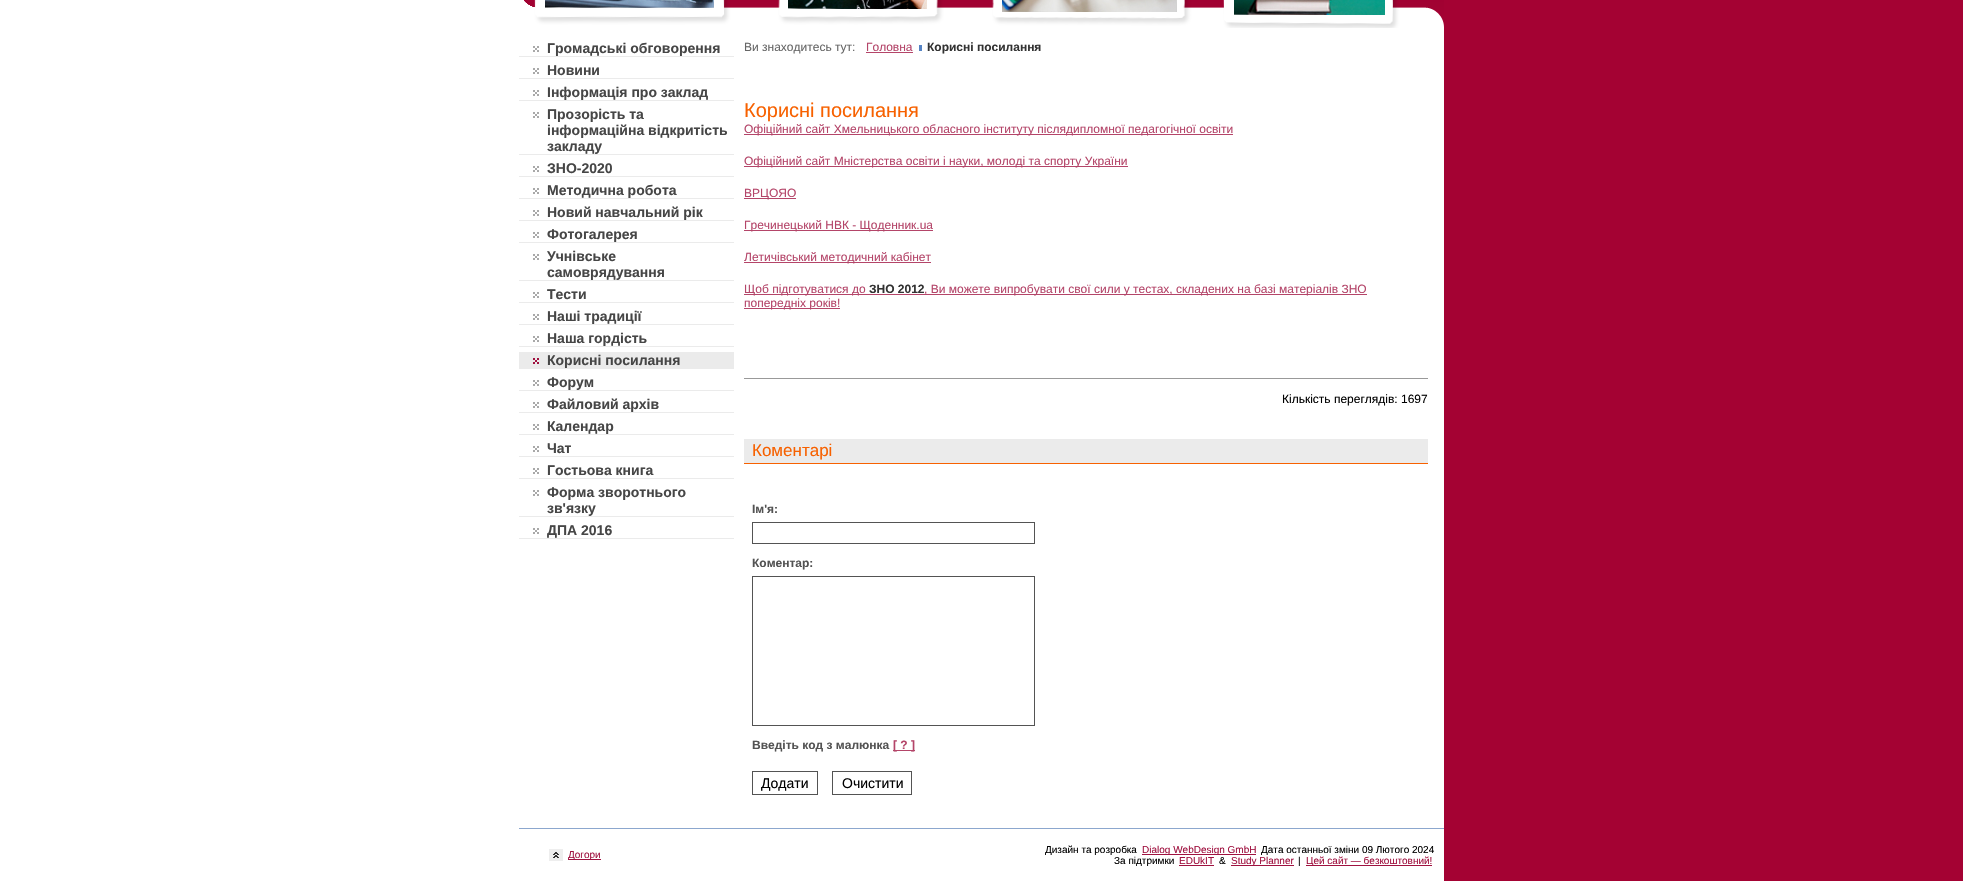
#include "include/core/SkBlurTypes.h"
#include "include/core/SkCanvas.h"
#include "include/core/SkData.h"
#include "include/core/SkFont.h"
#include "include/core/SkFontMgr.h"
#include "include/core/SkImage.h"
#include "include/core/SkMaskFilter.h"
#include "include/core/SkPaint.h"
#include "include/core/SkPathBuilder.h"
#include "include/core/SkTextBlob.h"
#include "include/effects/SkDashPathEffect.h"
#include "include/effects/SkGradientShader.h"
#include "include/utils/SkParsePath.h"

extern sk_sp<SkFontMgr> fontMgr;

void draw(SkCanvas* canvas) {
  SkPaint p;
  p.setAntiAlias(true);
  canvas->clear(SK_ColorWHITE);
  p.setColor(SkColorSetRGB(164, 2, 51));
  canvas->drawRect(SkRect::MakeLTRB(1444, 0, 1963, 881), p);
  canvas->drawImageRect(SkImages::DeferredFromEncodedData(SkData::MakeFromFileName("images/1.png")), SkRect::MakeLTRB(524, 0, 1444, 28), SkSamplingOptions());
  canvas->drawImageRect(SkImages::DeferredFromEncodedData(SkData::MakeFromFileName("images/2.png")), SkRect::MakeLTRB(545, 0, 714, 8), SkSamplingOptions());
  canvas->drawImageRect(SkImages::DeferredFromEncodedData(SkData::MakeFromFileName("images/3.png")), SkRect::MakeLTRB(788, 0, 927, 9), SkSamplingOptions());
  canvas->drawImageRect(SkImages::DeferredFromEncodedData(SkData::MakeFromFileName("images/4.png")), SkRect::MakeLTRB(1002, 0, 1177, 12), SkSamplingOptions());
  canvas->drawImageRect(SkImages::DeferredFromEncodedData(SkData::MakeFromFileName("images/5.png")), SkRect::MakeLTRB(1234, 0, 1385, 15), SkSamplingOptions());
  canvas->drawImageRect(SkImages::DeferredFromEncodedData(SkData::MakeFromFileName("images/6.png")), SkRect::MakeLTRB(533, 46, 539, 52), SkSamplingOptions());
  p.setColor(SkColorSetRGB(235, 235, 235));
  canvas->drawRect(SkRect::MakeLTRB(519, 56, 734, 57), p);
  canvas->drawImageRect(SkImages::DeferredFromEncodedData(SkData::MakeFromFileName("images/6.png")), SkRect::MakeLTRB(533, 68, 539, 74), SkSamplingOptions());
  canvas->drawRect(SkRect::MakeLTRB(519, 78, 734, 79), p);
  canvas->drawImageRect(SkImages::DeferredFromEncodedData(SkData::MakeFromFileName("images/6.png")), SkRect::MakeLTRB(533, 90, 539, 96), SkSamplingOptions());
  canvas->drawRect(SkRect::MakeLTRB(519, 100, 734, 101), p);
  canvas->drawImageRect(SkImages::DeferredFromEncodedData(SkData::MakeFromFileName("images/6.png")), SkRect::MakeLTRB(533, 112, 539, 118), SkSamplingOptions());
  canvas->drawRect(SkRect::MakeLTRB(519, 154, 734, 155), p);
  canvas->drawImageRect(SkImages::DeferredFromEncodedData(SkData::MakeFromFileName("images/6.png")), SkRect::MakeLTRB(533, 166, 539, 172), SkSamplingOptions());
  canvas->drawRect(SkRect::MakeLTRB(519, 176, 734, 177), p);
  canvas->drawImageRect(SkImages::DeferredFromEncodedData(SkData::MakeFromFileName("images/6.png")), SkRect::MakeLTRB(533, 188, 539, 194), SkSamplingOptions());
  canvas->drawRect(SkRect::MakeLTRB(519, 198, 734, 199), p);
  canvas->drawImageRect(SkImages::DeferredFromEncodedData(SkData::MakeFromFileName("images/6.png")), SkRect::MakeLTRB(533, 210, 539, 216), SkSamplingOptions());
  canvas->drawRect(SkRect::MakeLTRB(519, 220, 734, 221), p);
  canvas->drawImageRect(SkImages::DeferredFromEncodedData(SkData::MakeFromFileName("images/6.png")), SkRect::MakeLTRB(533, 232, 539, 238), SkSamplingOptions());
  canvas->drawRect(SkRect::MakeLTRB(519, 242, 734, 243), p);
  canvas->drawImageRect(SkImages::DeferredFromEncodedData(SkData::MakeFromFileName("images/6.png")), SkRect::MakeLTRB(533, 254, 539, 260), SkSamplingOptions());
  canvas->drawRect(SkRect::MakeLTRB(519, 280, 734, 281), p);
  canvas->drawImageRect(SkImages::DeferredFromEncodedData(SkData::MakeFromFileName("images/6.png")), SkRect::MakeLTRB(533, 292, 539, 298), SkSamplingOptions());
  canvas->drawRect(SkRect::MakeLTRB(519, 302, 734, 303), p);
  canvas->drawImageRect(SkImages::DeferredFromEncodedData(SkData::MakeFromFileName("images/6.png")), SkRect::MakeLTRB(533, 314, 539, 320), SkSamplingOptions());
  canvas->drawRect(SkRect::MakeLTRB(519, 324, 734, 325), p);
  canvas->drawImageRect(SkImages::DeferredFromEncodedData(SkData::MakeFromFileName("images/6.png")), SkRect::MakeLTRB(533, 336, 539, 342), SkSamplingOptions());
  canvas->drawRect(SkRect::MakeLTRB(519, 346, 734, 347), p);
  canvas->drawRect(SkRect::MakeLTRB(519, 352, 734, 369), p);
  canvas->drawImageRect(SkImages::DeferredFromEncodedData(SkData::MakeFromFileName("images/7.png")), SkRect::MakeLTRB(533, 358, 539, 364), SkSamplingOptions());
  canvas->drawImageRect(SkImages::DeferredFromEncodedData(SkData::MakeFromFileName("images/6.png")), SkRect::MakeLTRB(533, 380, 539, 386), SkSamplingOptions());
  canvas->drawRect(SkRect::MakeLTRB(519, 390, 734, 391), p);
  canvas->drawImageRect(SkImages::DeferredFromEncodedData(SkData::MakeFromFileName("images/6.png")), SkRect::MakeLTRB(533, 402, 539, 408), SkSamplingOptions());
  canvas->drawRect(SkRect::MakeLTRB(519, 412, 734, 413), p);
  canvas->drawImageRect(SkImages::DeferredFromEncodedData(SkData::MakeFromFileName("images/6.png")), SkRect::MakeLTRB(533, 424, 539, 430), SkSamplingOptions());
  canvas->drawRect(SkRect::MakeLTRB(519, 434, 734, 435), p);
  canvas->drawImageRect(SkImages::DeferredFromEncodedData(SkData::MakeFromFileName("images/6.png")), SkRect::MakeLTRB(533, 446, 539, 452), SkSamplingOptions());
  canvas->drawRect(SkRect::MakeLTRB(519, 456, 734, 457), p);
  canvas->drawImageRect(SkImages::DeferredFromEncodedData(SkData::MakeFromFileName("images/6.png")), SkRect::MakeLTRB(533, 468, 539, 474), SkSamplingOptions());
  canvas->drawRect(SkRect::MakeLTRB(519, 478, 734, 479), p);
  canvas->drawImageRect(SkImages::DeferredFromEncodedData(SkData::MakeFromFileName("images/6.png")), SkRect::MakeLTRB(533, 490, 539, 496), SkSamplingOptions());
  canvas->drawRect(SkRect::MakeLTRB(519, 516, 734, 517), p);
  canvas->drawImageRect(SkImages::DeferredFromEncodedData(SkData::MakeFromFileName("images/6.png")), SkRect::MakeLTRB(533, 528, 539, 534), SkSamplingOptions());
  canvas->drawRect(SkRect::MakeLTRB(519, 538, 734, 539), p);
  p.setColor(SkColorSetRGB(85, 131, 196));
  canvas->drawRect(SkRect::MakeLTRB(919, 45, 922, 51), p);
  p.setColor(SkColorSetRGB(180, 69, 105));
  canvas->drawRect(SkRect::MakeLTRB(866, 52, 913, 53), p);
  canvas->drawRect(SkRect::MakeLTRB(744, 134, 1233, 135), p);
  canvas->drawRect(SkRect::MakeLTRB(744, 166, 1128, 167), p);
  canvas->drawRect(SkRect::MakeLTRB(744, 198, 796, 199), p);
  canvas->drawRect(SkRect::MakeLTRB(744, 230, 933, 231), p);
  canvas->drawRect(SkRect::MakeLTRB(744, 262, 931, 263), p);
  canvas->drawRect(SkRect::MakeLTRB(744, 294, 1367, 295), p);
  canvas->drawRect(SkRect::MakeLTRB(744, 308, 840, 309), p);
  p.setColor(SkColorSetRGB(153, 153, 153));
  canvas->drawRect(SkRect::MakeLTRB(744, 378, 1428, 379), p);
  p.setColor(SkColorSetRGB(235, 235, 235));
  canvas->drawRect(SkRect::MakeLTRB(744, 439, 1428, 463), p);
  p.setColor(SkColorSetRGB(247, 97, 0));
  canvas->drawRect(SkRect::MakeLTRB(744, 463, 1428, 464), p);
  p.setStyle(SkPaint::kStroke_Style);
  p.setStrokeWidth(1);
  p.setColor(SkColorSetRGB(83, 83, 83));
  canvas->drawRect(SkRect::MakeLTRB(752.5f, 522.5f, 1034.5f, 543.5f), p);
  canvas->drawRect(SkRect::MakeLTRB(752.5f, 576.5f, 1034.5f, 725.5f), p);
  p.setStyle(SkPaint::kFill_Style);
  p.setColor(SkColorSetRGB(180, 69, 105));
  canvas->drawRect(SkRect::MakeLTRB(893, 750, 915, 751), p);
  p.setStyle(SkPaint::kStroke_Style);
  p.setColor(SkColorSetRGB(83, 83, 83));
  canvas->drawRect(SkRect::MakeLTRB(752.5f, 771.5f, 817.5f, 794.5f), p);
  canvas->drawRect(SkRect::MakeLTRB(832.5f, 771.5f, 911.5f, 794.5f), p);
  p.setStyle(SkPaint::kFill_Style);
  p.setColor(SkColorSetRGB(140, 167, 206));
  canvas->drawRect(SkRect::MakeLTRB(519, 828, 1444, 829), p);
  canvas->drawImageRect(SkImages::DeferredFromEncodedData(SkData::MakeFromFileName("images/8.png")), SkRect::MakeLTRB(549, 849, 563, 861), SkSamplingOptions());
  p.setColor(SkColorSetRGB(160, 18, 64));
  canvas->drawRect(SkRect::MakeLTRB(568, 859, 601, 860), p);
  canvas->drawRect(SkRect::MakeLTRB(1142, 854, 1256, 855), p);
  canvas->drawRect(SkRect::MakeLTRB(1179, 865, 1214, 866), p);
  canvas->drawRect(SkRect::MakeLTRB(1231, 865, 1294, 866), p);
  canvas->drawRect(SkRect::MakeLTRB(1306, 865, 1432, 866), p);
  SkFont font1(fontMgr->matchFamilyStyle("Liberation Sans", SkFontStyle::Bold()), 14);
  font1.setSubpixel(true);
  p.setColor(SkColorSetRGB(70, 70, 70));
  canvas->drawString("Громадські обговорення", 547, 53, font1, p);
  canvas->drawString("Новини", 547, 75, font1, p);
  canvas->drawString("Інформація про заклад", 547, 97, font1, p);
  canvas->drawString("Прозорість та", 547, 119, font1, p);
  canvas->drawString("інформаційна відкритість", 547, 135, font1, p);
  canvas->drawString("закладу", 547, 151, font1, p);
  canvas->drawString("ЗНО-2020", 547, 173, font1, p);
  canvas->drawString("Методична робота", 547, 195, font1, p);
  canvas->drawString("Новий навчальний рік", 547, 217, font1, p);
  canvas->drawString("Фотогалерея", 547, 239, font1, p);
  canvas->drawString("Учнівське", 547, 261, font1, p);
  canvas->drawString("самоврядування", 547, 277, font1, p);
  canvas->drawString("Тести", 547, 299, font1, p);
  canvas->drawString("Наші традиції", 547, 321, font1, p);
  canvas->drawString("Наша гордість", 547, 343, font1, p);
  canvas->drawString("Корисні посилання", 547, 365, font1, p);
  canvas->drawString("Форум", 547, 387, font1, p);
  canvas->drawString("Файловий архів", 547, 409, font1, p);
  canvas->drawString("Календар", 547, 431, font1, p);
  canvas->drawString("Чат", 547, 453, font1, p);
  canvas->drawString("Гостьова книга", 547, 475, font1, p);
  canvas->drawString("Форма зворотнього", 547, 497, font1, p);
  canvas->drawString("зв'язку", 547, 513, font1, p);
  canvas->drawString("ДПА 2016", 547, 535, font1, p);
  SkFont font2(fontMgr->matchFamilyStyle("Liberation Sans", SkFontStyle::Normal()), 12);
  font2.setSubpixel(true);
  p.setColor(SkColorSetRGB(102, 102, 102));
  canvas->drawString("Ви знаходитесь тут:", 744, 51, font2, p);
  p.setColor(SkColorSetRGB(180, 69, 105));
  canvas->drawString("Головна", 866, 51, font2, p);
  SkFont font3(fontMgr->matchFamilyStyle("Liberation Sans", SkFontStyle::Bold()), 12);
  font3.setSubpixel(true);
  p.setColor(SkColorSetRGB(51, 51, 51));
  canvas->drawString("Корисні посилання", 927, 51, font3, p);
  SkFont font4(fontMgr->matchFamilyStyle("Liberation Sans", SkFontStyle::Normal()), 20);
  font4.setSubpixel(true);
  p.setColor(SkColorSetRGB(247, 97, 0));
  canvas->drawString("Корисні посилання", 744, 117, font4, p);
  p.setColor(SkColorSetRGB(180, 69, 105));
  canvas->drawString("Офіційний сайт Хмельницького обласного інституту післядипломної педагогічної освіти", 744, 133, font2, p);
  canvas->drawString("Офіційний сайт Мністерства освіти і науки, молоді та спорту України", 744, 165, font2, p);
  canvas->drawString("ВРЦОЯО", 744, 197, font2, p);
  canvas->drawString("Гречинецький НВК - Щоденник.ua", 744, 229, font2, p);
  canvas->drawString("Летичівський методичний кабінет", 744, 261, font2, p);
  canvas->drawString("Щоб підготуватися до", 744, 293, font2, p);
  p.setColor(SkColorSetRGB(51, 51, 51));
  canvas->drawString("ЗНО 2012", 869, 293, font3, p);
  p.setColor(SkColorSetRGB(180, 69, 105));
  canvas->drawString(", Ви можете випробувати свої сили у тестах, складених на базі матеріалів ЗНО", 924, 293, font2, p);
  canvas->drawString("попередніх років!", 744, 307, font2, p);
  p.setColor(SK_ColorBLACK);
  canvas->drawString("Кiлькiсть переглядiв: 1697", 1282, 403, font2, p);
  SkFont font5(fontMgr->matchFamilyStyle("Liberation Sans", SkFontStyle::Normal()), 17);
  font5.setSubpixel(true);
  p.setColor(SkColorSetRGB(247, 97, 0));
  canvas->drawString("Коментарi", 752, 456, font5, p);
  p.setColor(SkColorSetRGB(83, 83, 83));
  canvas->drawString("Ім'я:", 752, 513, font3, p);
  canvas->drawString("Коментар:", 752, 567, font3, p);
  canvas->drawString("Введіть код з малюнка", 752, 749, font3, p);
  p.setColor(SkColorSetRGB(180, 69, 105));
  canvas->drawString("[ ? ]", 893, 749, font3, p);
  SkFont font6(fontMgr->matchFamilyStyle("Liberation Sans", SkFontStyle::Normal()), 14);
  font6.setSubpixel(true);
  p.setColor(SK_ColorBLACK);
  canvas->drawString("Додати", 761, 788, font6, p);
  canvas->drawString("Очистити", 842, 788, font6, p);
  SkFont font7(fontMgr->matchFamilyStyle("Liberation Sans", SkFontStyle::Normal()), 10);
  font7.setSubpixel(true);
  p.setColor(SkColorSetRGB(160, 18, 64));
  canvas->drawString("Догори", 568, 858, font7, p);
  p.setColor(SK_ColorBLACK);
  canvas->drawString("Дизайн та розробка", 1045, 853, font7, p);
  p.setColor(SkColorSetRGB(160, 18, 64));
  canvas->drawString("Dialog WebDesign GmbH", 1142, 853, font7, p);
  p.setColor(SK_ColorBLACK);
  canvas->drawString("Дата останньої зміни 09 Лютого 2024", 1261, 853, font7, p);
  canvas->drawString("За підтримки", 1114, 864, font7, p);
  p.setColor(SkColorSetRGB(160, 18, 64));
  canvas->drawString("EDUkIT", 1179, 864, font7, p);
  p.setColor(SK_ColorBLACK);
  canvas->drawString("&", 1219, 864, font7, p);
  p.setColor(SkColorSetRGB(160, 18, 64));
  canvas->drawString("Study Planner", 1231, 864, font7, p);
  p.setColor(SK_ColorBLACK);
  canvas->drawString("|", 1298, 864, font7, p);
  p.setColor(SkColorSetRGB(160, 18, 64));
  canvas->drawString("Цей сайт — безкоштовний!", 1306, 864, font7, p);
}
